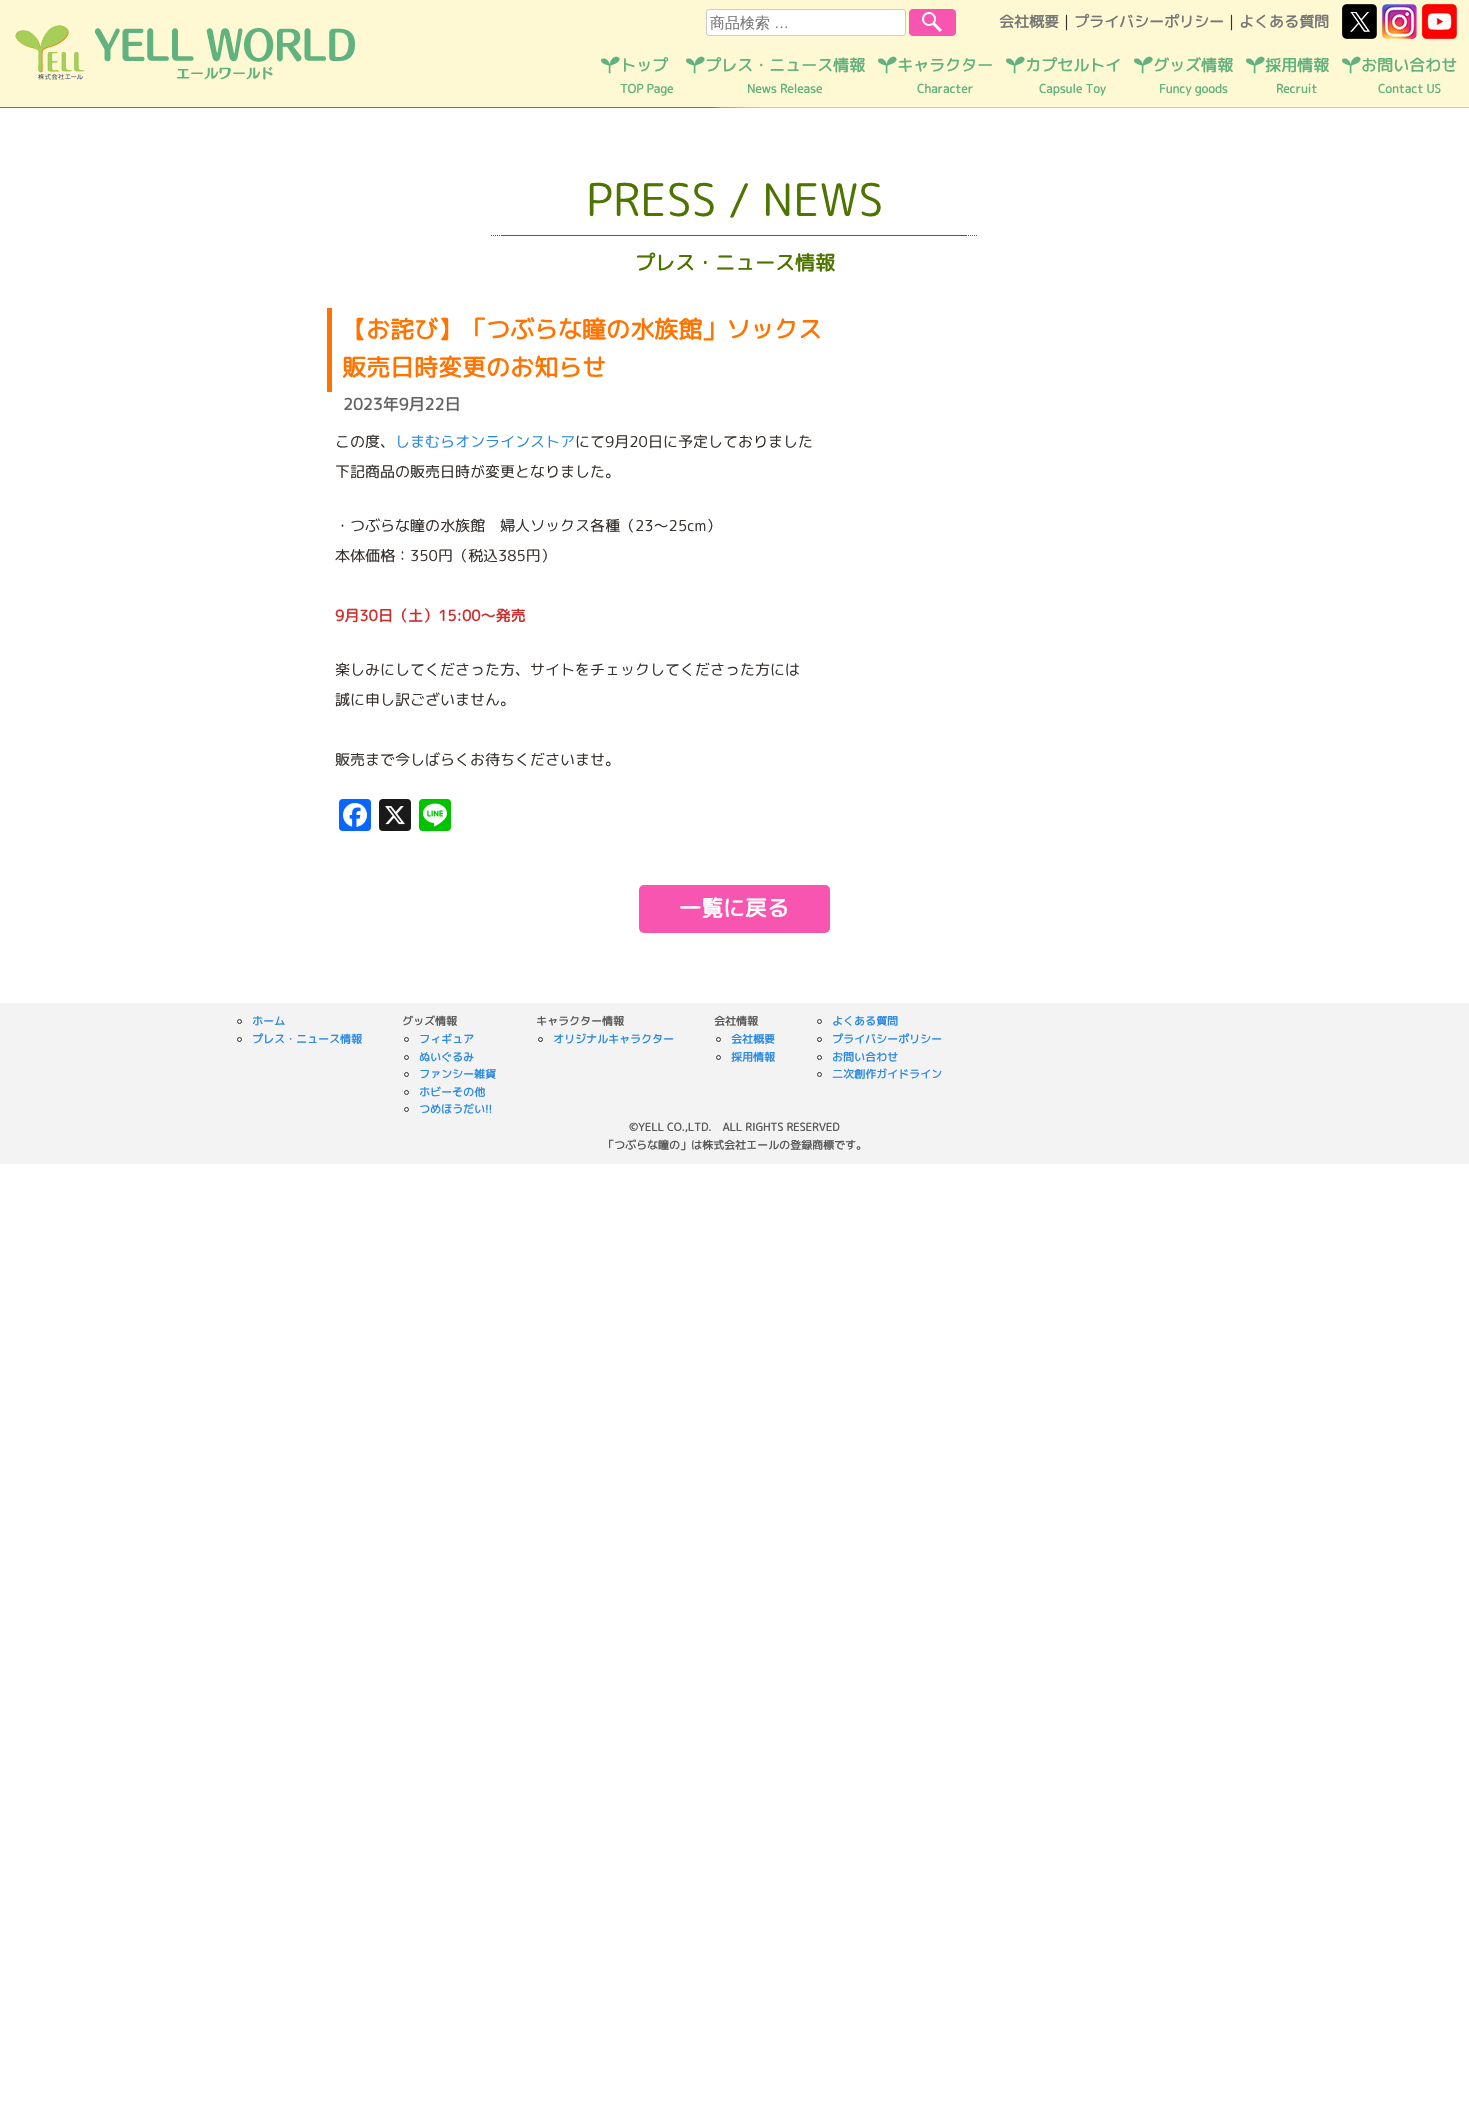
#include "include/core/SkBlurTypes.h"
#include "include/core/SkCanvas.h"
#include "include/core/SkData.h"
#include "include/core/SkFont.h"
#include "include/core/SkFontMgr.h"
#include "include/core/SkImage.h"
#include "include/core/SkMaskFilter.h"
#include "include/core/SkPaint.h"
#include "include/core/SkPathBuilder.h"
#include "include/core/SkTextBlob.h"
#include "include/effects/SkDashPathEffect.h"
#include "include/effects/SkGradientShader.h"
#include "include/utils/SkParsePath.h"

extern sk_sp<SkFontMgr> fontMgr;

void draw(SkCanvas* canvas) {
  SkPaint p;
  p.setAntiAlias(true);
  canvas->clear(SK_ColorWHITE);
  p.setColor(SkColorSetRGB(255, 249, 211));
  canvas->drawRect(SkRect::MakeLTRB(0, 0, 1469, 107), p);
  canvas->drawImageRect(SkImages::DeferredFromEncodedData(SkData::MakeFromFileName("images/1.png")), SkRect::MakeLTRB(0, 107, 1469, 108), SkSamplingOptions());
  canvas->drawImageRect(SkImages::DeferredFromEncodedData(SkData::MakeFromFileName("images/2.png")), SkRect::MakeLTRB(1342, 4, 1377, 39), SkSamplingOptions());
  canvas->drawImageRect(SkImages::DeferredFromEncodedData(SkData::MakeFromFileName("images/3.png")), SkRect::MakeLTRB(1382, 4, 1417, 39), SkSamplingOptions());
  canvas->drawImageRect(SkImages::DeferredFromEncodedData(SkData::MakeFromFileName("images/4.png")), SkRect::MakeLTRB(1422, 4, 1457, 39), SkSamplingOptions());
  canvas->drawImageRect(SkImages::DeferredFromEncodedData(SkData::MakeFromFileName("images/5.png")), SkRect::MakeLTRB(601, 56, 620, 74), SkSamplingOptions());
  canvas->drawImageRect(SkImages::DeferredFromEncodedData(SkData::MakeFromFileName("images/5.png")), SkRect::MakeLTRB(686, 56, 705, 74), SkSamplingOptions());
  canvas->drawImageRect(SkImages::DeferredFromEncodedData(SkData::MakeFromFileName("images/5.png")), SkRect::MakeLTRB(878, 56, 897, 74), SkSamplingOptions());
  canvas->drawImageRect(SkImages::DeferredFromEncodedData(SkData::MakeFromFileName("images/5.png")), SkRect::MakeLTRB(1006, 56, 1025, 74), SkSamplingOptions());
  canvas->drawImageRect(SkImages::DeferredFromEncodedData(SkData::MakeFromFileName("images/5.png")), SkRect::MakeLTRB(1134, 56, 1153, 74), SkSamplingOptions());
  canvas->drawImageRect(SkImages::DeferredFromEncodedData(SkData::MakeFromFileName("images/5.png")), SkRect::MakeLTRB(1246, 56, 1265, 74), SkSamplingOptions());
  canvas->drawImageRect(SkImages::DeferredFromEncodedData(SkData::MakeFromFileName("images/5.png")), SkRect::MakeLTRB(1342, 56, 1361, 74), SkSamplingOptions());
  p.setColor(SK_ColorWHITE);
  canvas->drawRoundRect(SkRect::MakeLTRB(706, 9, 906, 36), 3, 3, p);
  p.setStyle(SkPaint::kStroke_Style);
  p.setStrokeWidth(1);
  p.setColor(SkColorSetARGB(51, 0, 0, 0));
  canvas->drawRoundRect(SkRect::MakeLTRB(706.5f, 9.5f, 905.5f, 35.5f), 2.5f, 2.5f, p);
  canvas->drawImageRect(SkImages::DeferredFromEncodedData(SkData::MakeFromFileName("images/6.png")), SkRect::MakeLTRB(909, 9, 956, 36), SkSamplingOptions());
  canvas->drawImageRect(SkImages::DeferredFromEncodedData(SkData::MakeFromFileName("images/7.png")), SkRect::MakeLTRB(15, 25, 355, 80), SkSamplingOptions());
  canvas->drawImageRect(SkImages::DeferredFromEncodedData(SkData::MakeFromFileName("images/8.png")), SkRect::MakeLTRB(491, 235, 977, 236), SkSamplingOptions());
  p.setStyle(SkPaint::kFill_Style);
  p.setColor(SkColorSetRGB(255, 116, 0));
  canvas->drawRect(SkRect::MakeLTRB(327, 308, 332, 392), p);
  p.setColor(SkColorSetRGB(8, 102, 255));
  canvas->drawRoundRect(SkRect::MakeLTRB(339, 799, 371, 831), 4, 4, p);
  canvas->drawImageRect(SkImages::DeferredFromEncodedData(SkData::MakeFromFileName("images/9.png")), SkRect::MakeLTRB(343, 803, 367, 827), SkSamplingOptions());
  p.setColor(SkColorSetRGB(26, 26, 26));
  canvas->drawRoundRect(SkRect::MakeLTRB(379, 799, 411, 831), 4, 4, p);
  canvas->drawImageRect(SkImages::DeferredFromEncodedData(SkData::MakeFromFileName("images/10.png")), SkRect::MakeLTRB(385, 806, 405, 825), SkSamplingOptions());
  p.setColor(SkColorSetRGB(0, 195, 0));
  canvas->drawRoundRect(SkRect::MakeLTRB(419, 799, 451, 831), 4, 4, p);
  canvas->drawImageRect(SkImages::DeferredFromEncodedData(SkData::MakeFromFileName("images/11.png")), SkRect::MakeLTRB(423, 803, 447, 827), SkSamplingOptions());
  p.setColor(SkColorSetRGB(248, 85, 177));
  canvas->drawRoundRect(SkRect::MakeLTRB(639, 885, 830, 933), 5, 5, p);
  p.setColor(SkColorSetRGB(243, 243, 243));
  canvas->drawRect(SkRect::MakeLTRB(0, 1003, 1469, 1164), p);
  p.setStyle(SkPaint::kStroke_Style);
  p.setColor(SkColorSetRGB(54, 49, 45));
  canvas->drawCircle(239.5f, 1021.5f, 2, p);
  canvas->drawCircle(239.5f, 1039.5f, 2, p);
  canvas->drawCircle(406.5f, 1039.5f, 2, p);
  canvas->drawCircle(406.5f, 1057.5f, 2, p);
  canvas->drawCircle(406.5f, 1074.5f, 2, p);
  canvas->drawCircle(406.5f, 1092.5f, 2, p);
  canvas->drawCircle(406.5f, 1109.5f, 2, p);
  canvas->drawCircle(540.5f, 1039.5f, 2, p);
  canvas->drawCircle(718.5f, 1039.5f, 2, p);
  canvas->drawCircle(718.5f, 1057.5f, 2, p);
  canvas->drawCircle(819.5f, 1021.5f, 2, p);
  canvas->drawCircle(819.5f, 1039.5f, 2, p);
  canvas->drawCircle(819.5f, 1057.5f, 2, p);
  canvas->drawCircle(819.5f, 1074.5f, 2, p);
  SkFont font1(fontMgr->matchFamilyStyle("Rounded Mplus 1c", SkFontStyle::Bold()), 15);
  font1.setSubpixel(true);
  p.setStyle(SkPaint::kFill_Style);
  p.setColor(SkColorSetRGB(119, 119, 118));
  canvas->drawString("会社概要", 999, 27, font1, p);
  SkFont font2(fontMgr->matchFamilyStyle("Rounded Mplus 1c", SkFontStyle::Normal()), 15);
  font2.setSubpixel(true);
  p.setColor(SkColorSetRGB(54, 49, 45));
  canvas->drawString("｜", 1059, 27, font2, p);
  p.setColor(SkColorSetRGB(119, 119, 118));
  canvas->drawString("プライバシーポリシー", 1074, 27, font1, p);
  p.setColor(SkColorSetRGB(54, 49, 45));
  canvas->drawString("｜", 1224, 27, font2, p);
  p.setColor(SkColorSetRGB(119, 119, 118));
  canvas->drawString("よくある質問", 1239, 27, font1, p);
  SkFont font3(fontMgr->matchFamilyStyle("Rounded Mplus 1c", SkFontStyle::Bold()), 16);
  font3.setSubpixel(true);
  p.setColor(SkColorSetRGB(96, 178, 126));
  canvas->drawString("トップ", 620, 71, font3, p);
  SkFont font4(fontMgr->matchFamilyStyle("Rounded Mplus 1c", SkFontStyle::Bold()), 12);
  font4.setSubpixel(true);
  canvas->drawString("TOP Page", 620, 93, font4, p);
  canvas->drawString("プレス・ニュース情報", 705, 71, font3, p);
  canvas->drawString("News Release", 747, 93, font4, p);
  canvas->drawString("キャラクター", 897, 71, font3, p);
  canvas->drawString("Character", 917, 93, font4, p);
  canvas->drawString("カプセルトイ", 1025, 71, font3, p);
  canvas->drawString("Capsule Toy", 1039, 93, font4, p);
  canvas->drawString("グッズ情報", 1153, 71, font3, p);
  canvas->drawString("Funcy goods", 1159, 93, font4, p);
  canvas->drawString("採用情報", 1265, 71, font3, p);
  canvas->drawString("Recruit", 1276, 93, font4, p);
  canvas->drawString("お問い合わせ", 1361, 71, font3, p);
  canvas->drawString("Contact US", 1378, 93, font4, p);
  SkFont font5(fontMgr->matchFamilyStyle("WenQuanYi Zen Hei", SkFontStyle(500, SkFontStyle::kNormal_Width, SkFontStyle::kUpright_Slant)), 15);
  font5.setSubpixel(true);
  p.setColor(SkColorSetRGB(119, 119, 118));
  canvas->drawString("商品検索", 710, 28, font5, p);
  SkFont font6(fontMgr->matchFamilyStyle("Liberation Sans", SkFontStyle::Normal()), 15);
  font6.setSubpixel(true);
  canvas->drawString("…", 774, 28, font6, p);
  SkFont font7(fontMgr->matchFamilyStyle("Rounded Mplus 1c", SkFontStyle::Normal()), 45);
  font7.setSubpixel(true);
  p.setColor(SkColorSetRGB(78, 116, 0));
  canvas->drawString("PRESS / NEWS", 586, 216, font7, p);
  SkFont font8(fontMgr->matchFamilyStyle("Rounded Mplus 1c", SkFontStyle::Bold()), 20);
  font8.setSubpixel(true);
  canvas->drawString("プレス・ニュース情報", 635, 270, font8, p);
  SkFont font9(fontMgr->matchFamilyStyle("Rounded Mplus 1c", SkFontStyle::Bold()), 24);
  font9.setSubpixel(true);
  p.setColor(SkColorSetRGB(255, 116, 0));
  canvas->drawString("【お詫び】「つぶらな瞳の水族館」ソックス", 342, 338, font9, p);
  canvas->drawString("販売日時変更のお知らせ", 342, 376, font9, p);
  p.setColor(SkColorSetRGB(99, 99, 99));
  canvas->drawString("2023年9月22日", 343, 410, font3, p);
  p.setColor(SkColorSetRGB(54, 49, 45));
  canvas->drawString("この度、", 335, 447, font2, p);
  p.setColor(SkColorSetRGB(43, 137, 225));
  canvas->drawString("しまむらオンラインストア", 395, 447, font2, p);
  p.setColor(SkColorSetRGB(54, 49, 45));
  canvas->drawString("にて9月20日に予定しておりました", 575, 447, font2, p);
  canvas->drawString("下記商品の販売日時が変更となりました。", 335, 477, font2, p);
  canvas->drawString("・つぶらな瞳の水族館　婦人ソックス各種（23～25cm）", 335, 531, font2, p);
  canvas->drawString("本体価格：350円（税込385円）", 335, 561, font2, p);
  p.setColor(SkColorSetRGB(207, 46, 46));
  canvas->drawString("9月30日（土）15:00～発売", 335, 621, font1, p);
  p.setColor(SkColorSetRGB(54, 49, 45));
  canvas->drawString("楽しみにしてくださった方、サイトをチェックしてくださった方には", 335, 675, font2, p);
  canvas->drawString("誠に申し訳ございません。", 335, 705, font2, p);
  canvas->drawString("販売まで今しばらくお待ちくださいませ。", 335, 765, font2, p);
  SkFont font10(fontMgr->matchFamilyStyle("Rounded Mplus 1c", SkFontStyle::Bold()), 22);
  font10.setSubpixel(true);
  p.setColor(SK_ColorWHITE);
  canvas->drawString("一覧に戻る", 679, 916, font10, p);
  SkFont font11(fontMgr->matchFamilyStyle("Rounded Mplus 1c", SkFontStyle::Bold()), 11);
  font11.setSubpixel(true);
  p.setColor(SkColorSetRGB(43, 137, 225));
  canvas->drawString("ホーム", 252, 1025, font11, p);
  canvas->drawString("プレス・ニュース情報", 252, 1043, font11, p);
  p.setColor(SkColorSetRGB(88, 88, 88));
  canvas->drawString("グッズ情報", 402, 1025, font11, p);
  p.setColor(SkColorSetRGB(43, 137, 225));
  canvas->drawString("フィギュア", 419, 1043, font11, p);
  canvas->drawString("ぬいぐるみ", 419, 1061, font11, p);
  canvas->drawString("ファンシー雑貨", 419, 1078, font11, p);
  canvas->drawString("ホビーその他", 419, 1096, font11, p);
  canvas->drawString("つめほうだい!!", 419, 1113, font11, p);
  p.setColor(SkColorSetRGB(88, 88, 88));
  canvas->drawString("キャラクター情報", 536, 1025, font11, p);
  p.setColor(SkColorSetRGB(43, 137, 225));
  canvas->drawString("オリジナルキャラクター", 553, 1043, font11, p);
  p.setColor(SkColorSetRGB(88, 88, 88));
  canvas->drawString("会社情報", 714, 1025, font11, p);
  p.setColor(SkColorSetRGB(43, 137, 225));
  canvas->drawString("会社概要", 731, 1043, font11, p);
  canvas->drawString("採用情報", 731, 1061, font11, p);
  canvas->drawString("よくある質問", 832, 1025, font11, p);
  canvas->drawString("プライバシーポリシー", 832, 1043, font11, p);
  canvas->drawString("お問い合わせ", 832, 1061, font11, p);
  canvas->drawString("二次創作ガイドライン", 832, 1078, font11, p);
  p.setColor(SkColorSetRGB(88, 88, 88));
  canvas->drawString("©YELL CO.,LTD.　ALL RIGHTS RESERVED", 629, 1131, font11, p);
  canvas->drawString("「つぶらな瞳の」は株式会社エールの登録商標です。", 603, 1149, font11, p);
}
